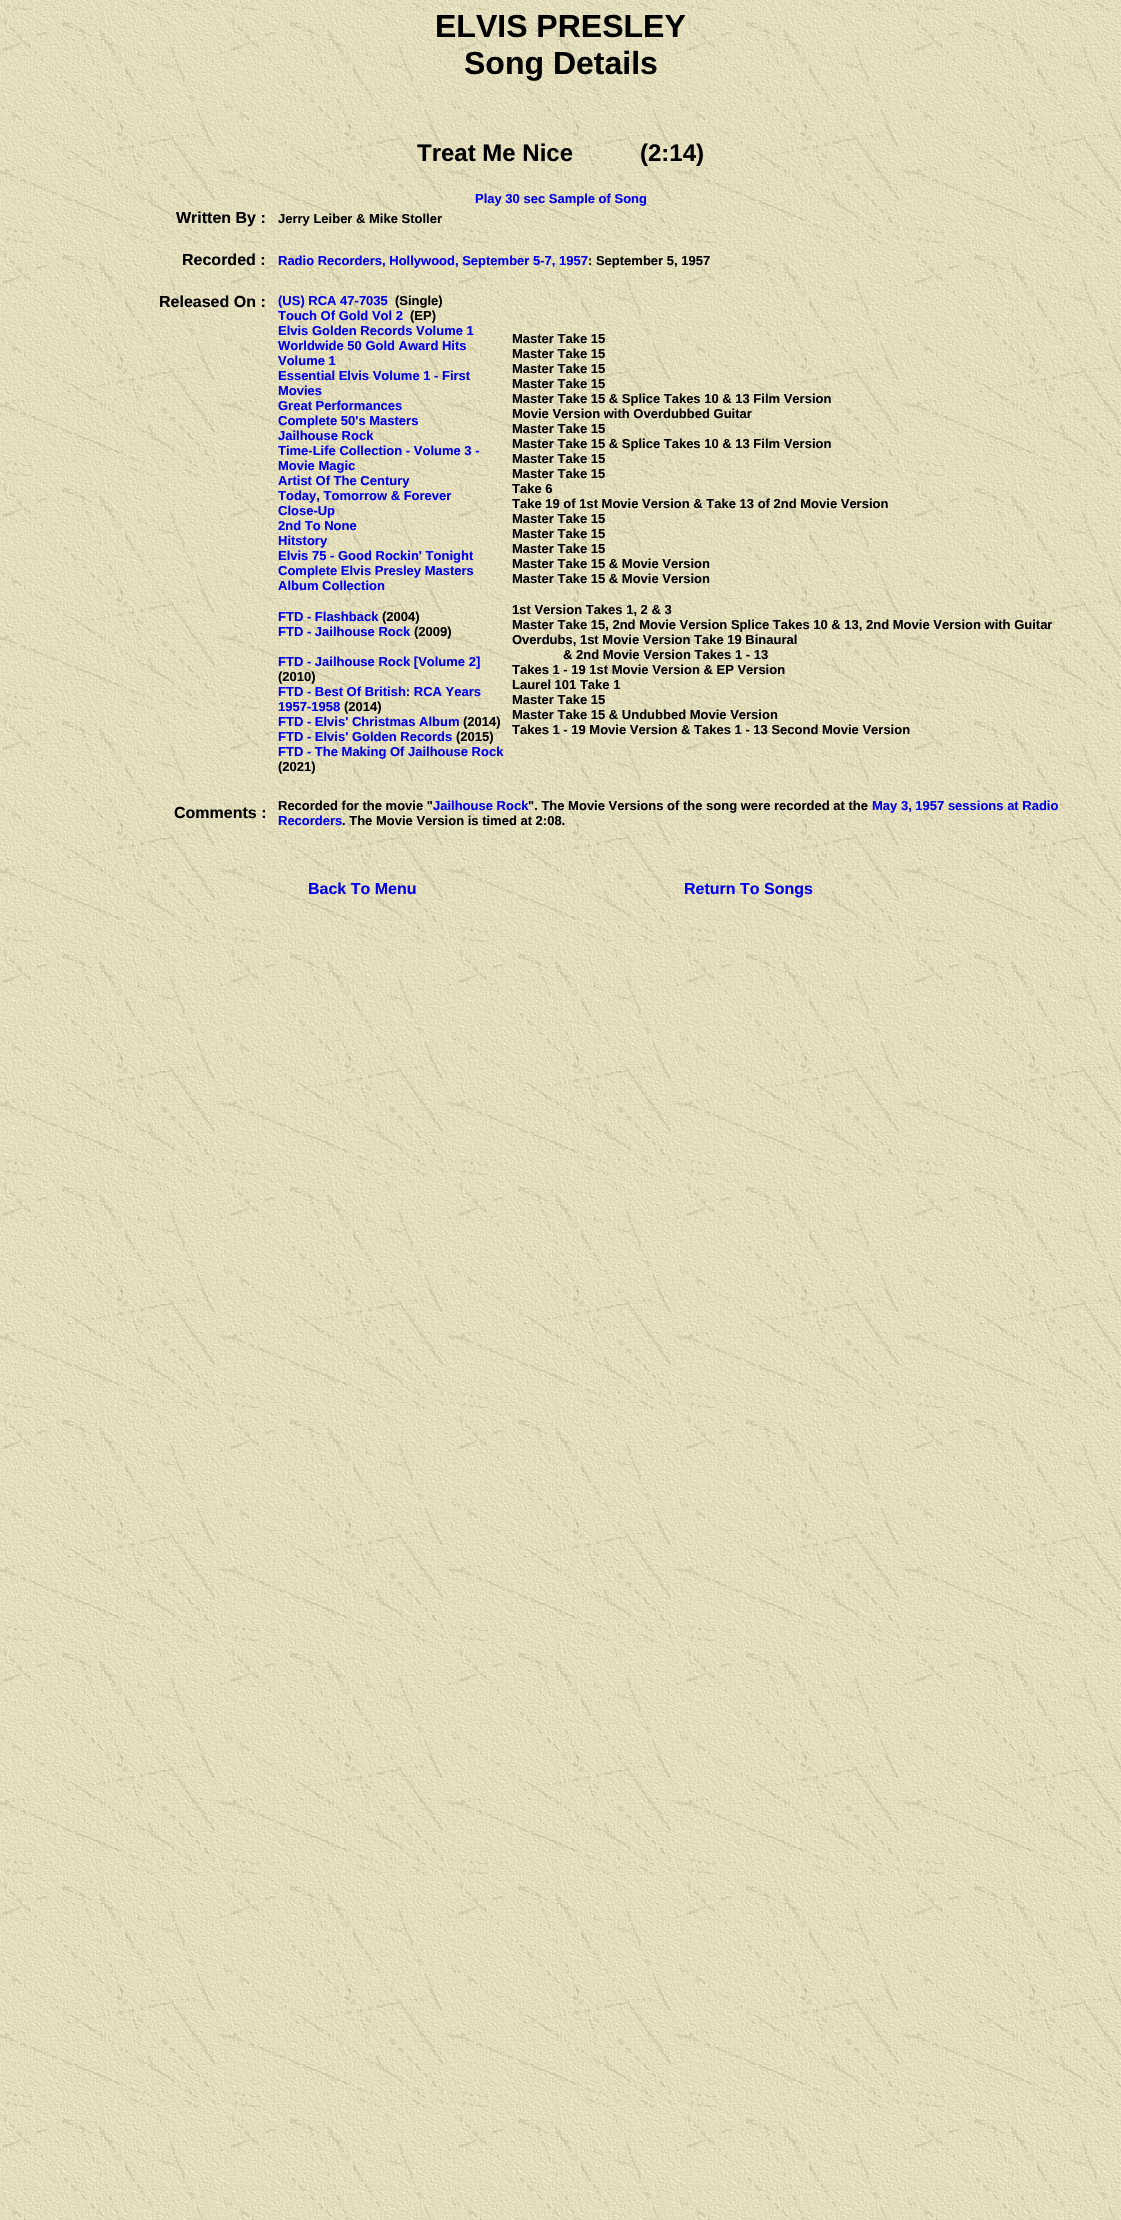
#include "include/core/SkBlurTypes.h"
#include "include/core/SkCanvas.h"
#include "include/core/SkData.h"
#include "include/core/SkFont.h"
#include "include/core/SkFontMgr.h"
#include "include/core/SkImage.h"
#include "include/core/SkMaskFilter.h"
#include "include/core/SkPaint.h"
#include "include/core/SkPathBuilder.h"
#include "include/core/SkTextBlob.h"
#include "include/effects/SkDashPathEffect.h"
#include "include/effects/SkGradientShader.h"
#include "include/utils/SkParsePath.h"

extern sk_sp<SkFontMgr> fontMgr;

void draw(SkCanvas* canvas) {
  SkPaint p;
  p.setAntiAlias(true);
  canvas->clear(SK_ColorWHITE);
  canvas->drawImageRect(SkImages::DeferredFromEncodedData(SkData::MakeFromFileName("images/1.png")), SkRect::MakeLTRB(0, 0, 1121, 2220), SkSamplingOptions());
  SkFont font1(fontMgr->matchFamilyStyle("Liberation Sans", SkFontStyle::Bold()), 32);
  font1.setSubpixel(true);
  p.setColor(SK_ColorBLACK);
  canvas->drawString("ELVIS PRESLEY", 435, 37, font1, p);
  canvas->drawString("Song Details", 464, 74, font1, p);
  SkFont font2(fontMgr->matchFamilyStyle("Liberation Sans", SkFontStyle::Bold()), 24);
  font2.setSubpixel(true);
  canvas->drawString("Treat Me Nice", 417, 161, font2, p);
  canvas->drawString("(2:14)", 640, 161, font2, p);
  SkFont font3(fontMgr->matchFamilyStyle("Liberation Sans", SkFontStyle::Bold()), 13);
  font3.setSubpixel(true);
  p.setColor(SkColorSetRGB(0, 0, 238));
  canvas->drawString("Play 30 sec Sample of Song", 475, 203, font3, p);
  SkFont font4(fontMgr->matchFamilyStyle("Liberation Sans", SkFontStyle::Bold()), 16);
  font4.setSubpixel(true);
  p.setColor(SK_ColorBLACK);
  canvas->drawString("Written By :", 176, 223, font4, p);
  canvas->drawString("Jerry Leiber & Mike Stoller", 278, 223, font3, p);
  canvas->drawString("Recorded :", 182, 265, font4, p);
  p.setColor(SkColorSetRGB(0, 0, 238));
  canvas->drawString("Radio Recorders, Hollywood, September 5-7, 1957", 278, 265, font3, p);
  p.setColor(SK_ColorBLACK);
  canvas->drawString(": September 5, 1957", 588, 265, font3, p);
  canvas->drawString("Released On :", 159, 307, font4, p);
  p.setColor(SkColorSetRGB(0, 0, 238));
  canvas->drawString("(US) RCA 47-7035", 278, 305, font3, p);
  p.setColor(SK_ColorBLACK);
  canvas->drawString("(Single)", 395, 305, font3, p);
  p.setColor(SkColorSetRGB(0, 0, 238));
  canvas->drawString("Touch Of Gold Vol 2", 278, 320, font3, p);
  p.setColor(SK_ColorBLACK);
  canvas->drawString("(EP)", 410, 320, font3, p);
  p.setColor(SkColorSetRGB(0, 0, 238));
  canvas->drawString("Elvis Golden Records Volume 1", 278, 335, font3, p);
  canvas->drawString("Worldwide 50 Gold Award Hits", 278, 350, font3, p);
  canvas->drawString("Volume 1", 278, 365, font3, p);
  canvas->drawString("Essential Elvis Volume 1 - First", 278, 380, font3, p);
  canvas->drawString("Movies", 278, 395, font3, p);
  canvas->drawString("Great Performances", 278, 410, font3, p);
  canvas->drawString("Complete 50's Masters", 278, 425, font3, p);
  canvas->drawString("Jailhouse Rock", 278, 440, font3, p);
  canvas->drawString("Time-Life Collection - Volume 3 -", 278, 455, font3, p);
  canvas->drawString("Movie Magic", 278, 470, font3, p);
  canvas->drawString("Artist Of The Century", 278, 485, font3, p);
  canvas->drawString("Today, Tomorrow & Forever", 278, 500, font3, p);
  canvas->drawString("Close-Up", 278, 515, font3, p);
  canvas->drawString("2nd To None", 278, 530, font3, p);
  canvas->drawString("Hitstory", 278, 545, font3, p);
  canvas->drawString("Elvis 75 - Good Rockin' Tonight", 278, 560, font3, p);
  canvas->drawString("Complete Elvis Presley Masters", 278, 575, font3, p);
  canvas->drawString("Album Collection", 278, 590, font3, p);
  canvas->drawString("FTD - Flashback", 278, 621, font3, p);
  p.setColor(SK_ColorBLACK);
  canvas->drawString("(2004)", 382, 621, font3, p);
  p.setColor(SkColorSetRGB(0, 0, 238));
  canvas->drawString("FTD - Jailhouse Rock", 278, 636, font3, p);
  p.setColor(SK_ColorBLACK);
  canvas->drawString("(2009)", 414, 636, font3, p);
  p.setColor(SkColorSetRGB(0, 0, 238));
  canvas->drawString("FTD - Jailhouse Rock [Volume 2]", 278, 666, font3, p);
  p.setColor(SK_ColorBLACK);
  canvas->drawString("(2010)", 278, 681, font3, p);
  p.setColor(SkColorSetRGB(0, 0, 238));
  canvas->drawString("FTD - Best Of British: RCA Years", 278, 696, font3, p);
  canvas->drawString("1957-1958", 278, 711, font3, p);
  p.setColor(SK_ColorBLACK);
  canvas->drawString("(2014)", 344, 711, font3, p);
  p.setColor(SkColorSetRGB(0, 0, 238));
  canvas->drawString("FTD - Elvis' Christmas Album", 278, 726, font3, p);
  p.setColor(SK_ColorBLACK);
  canvas->drawString("(2014)", 463, 726, font3, p);
  p.setColor(SkColorSetRGB(0, 0, 238));
  canvas->drawString("FTD - Elvis' Golden Records", 278, 741, font3, p);
  p.setColor(SK_ColorBLACK);
  canvas->drawString("(2015)", 456, 741, font3, p);
  p.setColor(SkColorSetRGB(0, 0, 238));
  canvas->drawString("FTD - The Making Of Jailhouse Rock", 278, 756, font3, p);
  p.setColor(SK_ColorBLACK);
  canvas->drawString("(2021)", 278, 771, font3, p);
  canvas->drawString("Master Take 15", 512, 343, font3, p);
  canvas->drawString("Master Take 15", 512, 358, font3, p);
  canvas->drawString("Master Take 15", 512, 373, font3, p);
  canvas->drawString("Master Take 15", 512, 388, font3, p);
  canvas->drawString("Master Take 15 & Splice Takes 10 & 13 Film Version", 512, 403, font3, p);
  canvas->drawString("Movie Version with Overdubbed Guitar", 512, 418, font3, p);
  canvas->drawString("Master Take 15", 512, 433, font3, p);
  canvas->drawString("Master Take 15 & Splice Takes 10 & 13 Film Version", 512, 448, font3, p);
  canvas->drawString("Master Take 15", 512, 463, font3, p);
  canvas->drawString("Master Take 15", 512, 478, font3, p);
  canvas->drawString("Take 6", 512, 493, font3, p);
  canvas->drawString("Take 19 of 1st Movie Version & Take 13 of 2nd Movie Version", 512, 508, font3, p);
  canvas->drawString("Master Take 15", 512, 523, font3, p);
  canvas->drawString("Master Take 15", 512, 538, font3, p);
  canvas->drawString("Master Take 15", 512, 553, font3, p);
  canvas->drawString("Master Take 15 & Movie Version", 512, 568, font3, p);
  canvas->drawString("Master Take 15 & Movie Version", 512, 583, font3, p);
  canvas->drawString("1st Version Takes 1, 2 & 3", 512, 614, font3, p);
  canvas->drawString("Master Take 15, 2nd Movie Version Splice Takes 10 & 13, 2nd Movie Version with Guitar", 512, 629, font3, p);
  canvas->drawString("Overdubs, 1st Movie Version Take 19 Binaural", 512, 644, font3, p);
  canvas->drawString("& 2nd Movie Version Takes 1 - 13", 563, 659, font3, p);
  canvas->drawString("Takes 1 - 19 1st Movie Version & EP Version", 512, 674, font3, p);
  canvas->drawString("Laurel 101 Take 1", 512, 689, font3, p);
  canvas->drawString("Master Take 15", 512, 704, font3, p);
  canvas->drawString("Master Take 15 & Undubbed Movie Version", 512, 719, font3, p);
  canvas->drawString("Takes 1 - 19 Movie Version & Takes 1 - 13 Second Movie Version", 512, 734, font3, p);
  canvas->drawString("Comments :", 174, 818, font4, p);
  canvas->drawString("Recorded for the movie \"", 278, 810, font3, p);
  p.setColor(SkColorSetRGB(0, 0, 238));
  canvas->drawString("Jailhouse Rock", 433, 810, font3, p);
  p.setColor(SK_ColorBLACK);
  canvas->drawString("\". The Movie Versions of the song were recorded at the", 528, 810, font3, p);
  p.setColor(SkColorSetRGB(0, 0, 238));
  canvas->drawString("May 3, 1957 sessions at Radio", 872, 810, font3, p);
  canvas->drawString("Recorders", 278, 825, font3, p);
  p.setColor(SK_ColorBLACK);
  canvas->drawString(". The Movie Version is timed at 2:08.", 342, 825, font3, p);
  p.setColor(SkColorSetRGB(0, 0, 238));
  canvas->drawString("Back To Menu", 308, 894, font4, p);
  canvas->drawString("Return To Songs", 684, 894, font4, p);
}
